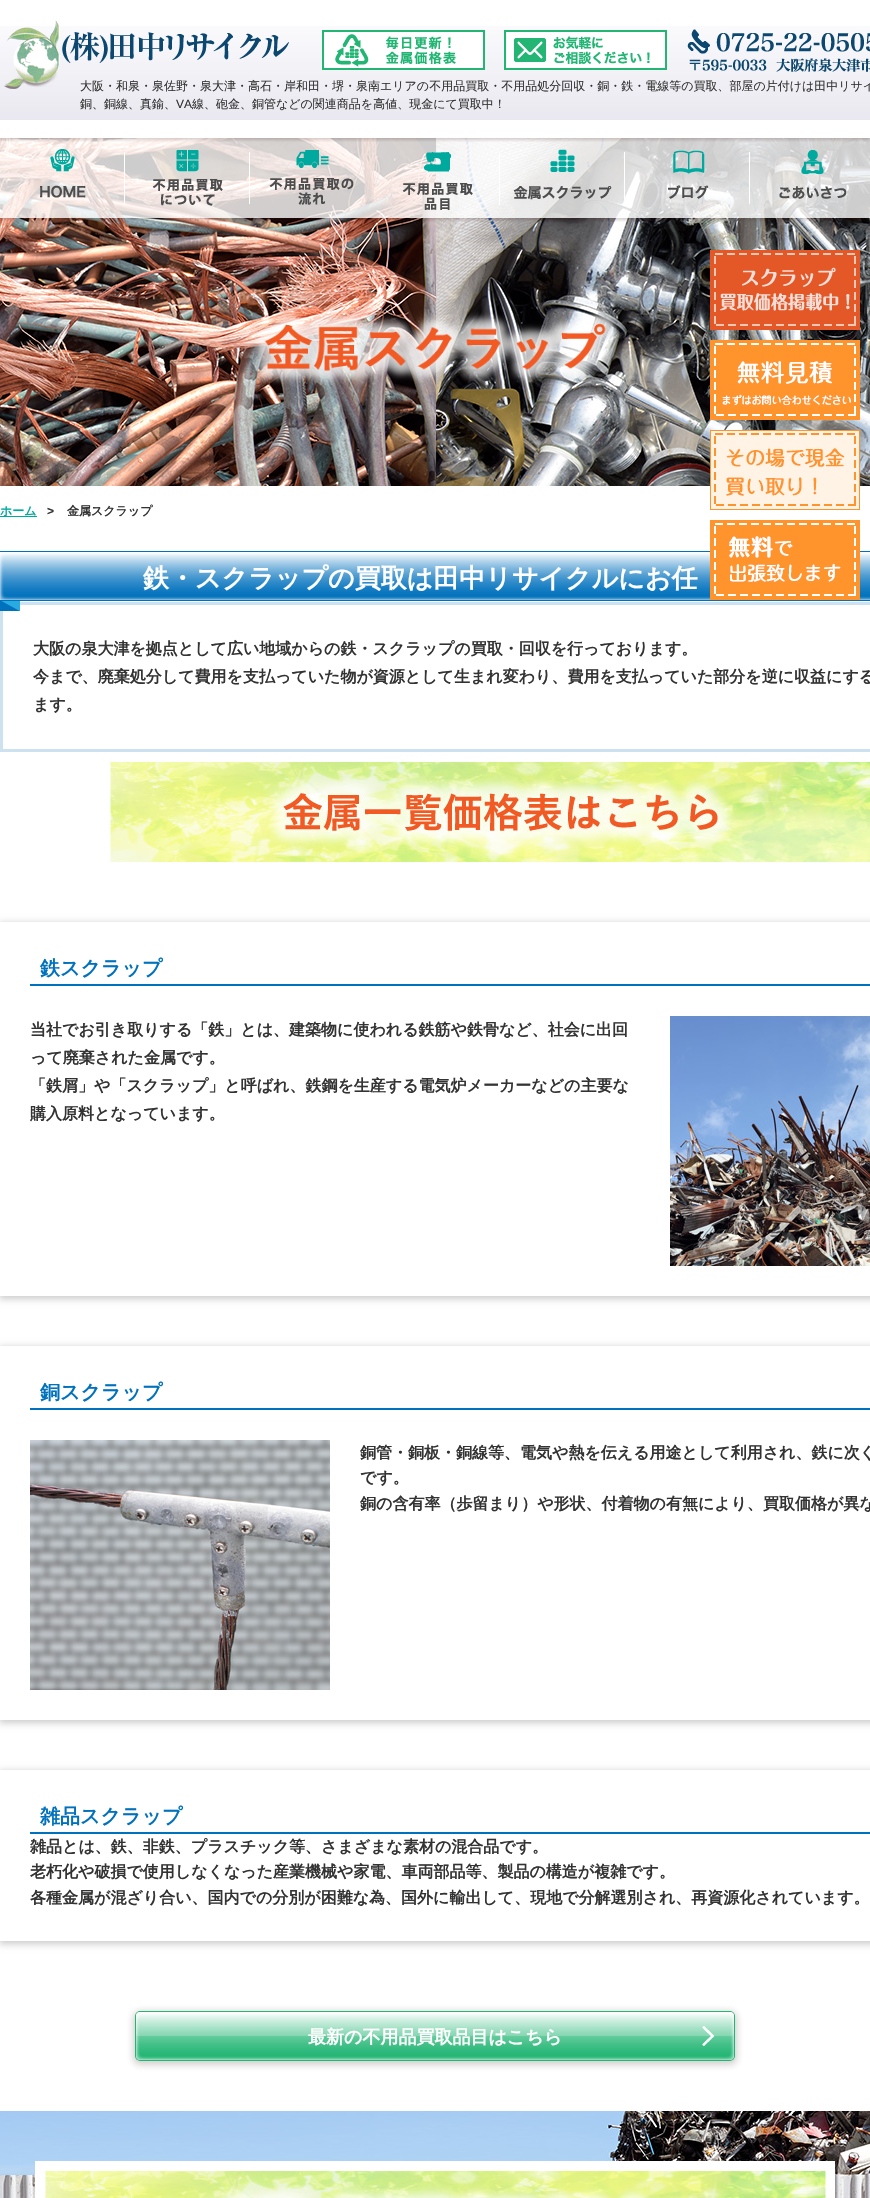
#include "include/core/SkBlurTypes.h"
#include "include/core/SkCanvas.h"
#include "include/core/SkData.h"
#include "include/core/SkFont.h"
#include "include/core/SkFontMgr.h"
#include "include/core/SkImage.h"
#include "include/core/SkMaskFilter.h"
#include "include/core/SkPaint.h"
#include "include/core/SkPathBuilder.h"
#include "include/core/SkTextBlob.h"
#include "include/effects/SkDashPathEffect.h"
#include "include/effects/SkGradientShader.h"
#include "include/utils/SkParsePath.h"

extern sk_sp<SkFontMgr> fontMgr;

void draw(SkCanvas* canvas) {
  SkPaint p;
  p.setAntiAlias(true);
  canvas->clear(SK_ColorWHITE);
  canvas->drawImageRect(SkImages::DeferredFromEncodedData(SkData::MakeFromFileName("images/8.png")), SkRect::MakeLTRB(0, 138, 870, 486), SkSamplingOptions());
  canvas->save();
  canvas->clipRect(SkRect::MakeLTRB(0, 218, 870, 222));
  p.setColor(SkColorSetARGB(51, 48, 17, 17));
  p.setMaskFilter(SkMaskFilter::MakeBlur(kNormal_SkBlurStyle, 1.5f));
  canvas->drawRect(SkRect::MakeLTRB(0, 140, 870, 220), p);
  p.setMaskFilter(nullptr);
  canvas->restore();
  p.setColor(SkColorSetARGB(204, 255, 255, 255));
  canvas->drawRect(SkRect::MakeLTRB(0, 138, 870, 218), p);
  canvas->save();
  canvas->clipRect(SkRect::MakeLTRB(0, 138, 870, 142));
  p.setColor(SkColorSetARGB(51, 48, 17, 17));
  p.setMaskFilter(SkMaskFilter::MakeBlur(kNormal_SkBlurStyle, 1.5f));
  canvas->drawRect(SkRect::MakeLTRB(0, 2, 870, 140), p);
  p.setMaskFilter(nullptr);
  canvas->restore();
  canvas->drawImageRect(SkImages::DeferredFromEncodedData(SkData::MakeFromFileName("images/1.png")), SkRect::MakeLTRB(0, 26, 870, 120), SkSamplingOptions());
  canvas->drawImageRect(SkImages::DeferredFromEncodedData(SkData::MakeFromFileName("images/2.png")), SkRect::MakeLTRB(4, 20, 289, 89), SkSamplingOptions());
  canvas->drawImageRect(SkImages::DeferredFromEncodedData(SkData::MakeFromFileName("images/3.png")), SkRect::MakeLTRB(322, 30, 485, 70), SkSamplingOptions());
  canvas->drawImageRect(SkImages::DeferredFromEncodedData(SkData::MakeFromFileName("images/4.png")), SkRect::MakeLTRB(504, 30, 667, 70), SkSamplingOptions());
  canvas->drawImageRect(SkImages::DeferredFromEncodedData(SkData::MakeFromFileName("images/5.png")), SkRect::MakeLTRB(687, 29, 710, 54), SkSamplingOptions());
  canvas->drawImageRect(SkImages::DeferredFromEncodedData(SkData::MakeFromFileName("images/6.png")), SkRect::MakeLTRB(716, 33, 870, 52), SkSamplingOptions());
  canvas->drawImageRect(SkImages::DeferredFromEncodedData(SkData::MakeFromFileName("images/7.png")), SkRect::MakeLTRB(689, 58, 870, 72), SkSamplingOptions());
  canvas->drawImageRect(SkImages::DeferredFromEncodedData(SkData::MakeFromFileName("images/9.png")), SkRect::MakeLTRB(40, 149, 125, 204), SkSamplingOptions());
  canvas->drawImageRect(SkImages::DeferredFromEncodedData(SkData::MakeFromFileName("images/10.png")), SkRect::MakeLTRB(152, 150, 250, 206), SkSamplingOptions());
  canvas->drawImageRect(SkImages::DeferredFromEncodedData(SkData::MakeFromFileName("images/11.png")), SkRect::MakeLTRB(269, 150, 354, 205), SkSamplingOptions());
  canvas->drawImageRect(SkImages::DeferredFromEncodedData(SkData::MakeFromFileName("images/12.png")), SkRect::MakeLTRB(402, 152, 500, 210), SkSamplingOptions());
  canvas->drawImageRect(SkImages::DeferredFromEncodedData(SkData::MakeFromFileName("images/13.png")), SkRect::MakeLTRB(513, 149, 625, 200), SkSamplingOptions());
  canvas->drawImageRect(SkImages::DeferredFromEncodedData(SkData::MakeFromFileName("images/14.png")), SkRect::MakeLTRB(668, 150, 750, 204), SkSamplingOptions());
  canvas->drawImageRect(SkImages::DeferredFromEncodedData(SkData::MakeFromFileName("images/15.png")), SkRect::MakeLTRB(779, 150, 847, 199), SkSamplingOptions());
  canvas->drawImageRect(SkImages::DeferredFromEncodedData(SkData::MakeFromFileName("images/16.png")), SkRect::MakeLTRB(251, 309, 621, 386), SkSamplingOptions());
  p.setColor(SkColorSetRGB(0, 169, 157));
  canvas->drawRect(SkRect::MakeLTRB(0, 516, 37, 517), p);
  canvas->drawImageRect(SkImages::DeferredFromEncodedData(SkData::MakeFromFileName("images/17.png")), SkRect::MakeLTRB(710, 250, 860, 330), SkSamplingOptions());
  canvas->drawImageRect(SkImages::DeferredFromEncodedData(SkData::MakeFromFileName("images/18.png")), SkRect::MakeLTRB(710, 340, 860, 420), SkSamplingOptions());
  canvas->drawImageRect(SkImages::DeferredFromEncodedData(SkData::MakeFromFileName("images/19.png")), SkRect::MakeLTRB(710, 430, 860, 510), SkSamplingOptions());
  canvas->drawImageRect(SkImages::DeferredFromEncodedData(SkData::MakeFromFileName("images/21.png")), SkRect::MakeLTRB(0, 551, 870, 601), SkSamplingOptions());
  canvas->drawImageRect(SkImages::DeferredFromEncodedData(SkData::MakeFromFileName("images/20.png")), SkRect::MakeLTRB(710, 520, 860, 600), SkSamplingOptions());
  p.setStyle(SkPaint::kStroke_Style);
  p.setStrokeWidth(3);
  p.setColor(SkColorSetRGB(204, 226, 240));
  canvas->drawRect(SkRect::MakeLTRB(1.5f, 603.5f, 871.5f, 750.5f), p);
  canvas->drawImageRect(SkImages::DeferredFromEncodedData(SkData::MakeFromFileName("images/22.png")), SkRect::MakeLTRB(0, 601, 20, 611), SkSamplingOptions());
  canvas->drawImageRect(SkImages::DeferredFromEncodedData(SkData::MakeFromFileName("images/23.png")), SkRect::MakeLTRB(108, 760, 870, 864), SkSamplingOptions());
  canvas->save();
  canvas->clipPath(SkPathBuilder(SkPathFillType::kEvenOdd).moveTo(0, 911).lineTo(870, 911).lineTo(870, 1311).lineTo(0, 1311).close().moveTo(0, 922).lineTo(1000, 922).lineTo(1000, 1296).lineTo(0, 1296).close().detach(), true);
  p.setStyle(SkPaint::kFill_Style);
  p.setColor(SkColorSetRGB(204, 204, 204));
  p.setMaskFilter(SkMaskFilter::MakeBlur(kNormal_SkBlurStyle, 3.5f));
  canvas->drawRect(SkRect::MakeLTRB(-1, 923, 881, 1299), p);
  p.setMaskFilter(nullptr);
  canvas->restore();
  p.setColor(SkColorSetRGB(0, 113, 189));
  canvas->drawRect(SkRect::MakeLTRB(30, 984, 870, 986), p);
  canvas->drawImageRect(SkImages::DeferredFromEncodedData(SkData::MakeFromFileName("images/24.png")), SkRect::MakeLTRB(670, 1016, 870, 1266), SkSamplingOptions());
  canvas->save();
  canvas->clipPath(SkPathBuilder(SkPathFillType::kEvenOdd).moveTo(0, 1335).lineTo(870, 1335).lineTo(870, 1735).lineTo(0, 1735).close().moveTo(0, 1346).lineTo(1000, 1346).lineTo(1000, 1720).lineTo(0, 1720).close().detach(), true);
  p.setColor(SkColorSetRGB(204, 204, 204));
  p.setMaskFilter(SkMaskFilter::MakeBlur(kNormal_SkBlurStyle, 3.5f));
  canvas->drawRect(SkRect::MakeLTRB(-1, 1347, 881, 1723), p);
  p.setMaskFilter(nullptr);
  canvas->restore();
  p.setColor(SkColorSetRGB(0, 113, 189));
  canvas->drawRect(SkRect::MakeLTRB(30, 1408, 870, 1410), p);
  canvas->drawImageRect(SkImages::DeferredFromEncodedData(SkData::MakeFromFileName("images/25.png")), SkRect::MakeLTRB(30, 1440, 330, 1690), SkSamplingOptions());
  canvas->save();
  canvas->clipPath(SkPathBuilder(SkPathFillType::kEvenOdd).moveTo(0, 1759).lineTo(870, 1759).lineTo(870, 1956).lineTo(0, 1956).close().moveTo(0, 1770).lineTo(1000, 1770).lineTo(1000, 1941).lineTo(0, 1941).close().detach(), true);
  p.setColor(SkColorSetRGB(204, 204, 204));
  p.setMaskFilter(SkMaskFilter::MakeBlur(kNormal_SkBlurStyle, 3.5f));
  canvas->drawRect(SkRect::MakeLTRB(-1, 1771, 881, 1944), p);
  p.setMaskFilter(nullptr);
  canvas->restore();
  p.setColor(SkColorSetRGB(0, 113, 189));
  canvas->drawRect(SkRect::MakeLTRB(30, 1832, 870, 1834), p);
  p.setColor(SkColorSetARGB(51, 48, 17, 17));
  p.setMaskFilter(SkMaskFilter::MakeBlur(kNormal_SkBlurStyle, 3.5f));
  canvas->drawRoundRect(SkRect::MakeLTRB(133, 2011, 737, 2065), 7, 7, p);
  p.setMaskFilter(nullptr);
  canvas->drawImageRect(SkImages::DeferredFromEncodedData(SkData::MakeFromFileName("images/26.png")), SkRect::MakeLTRB(135, 2011, 735, 2061), SkSamplingOptions());
  canvas->drawImageRect(SkImages::DeferredFromEncodedData(SkData::MakeFromFileName("images/27.png")), SkRect::MakeLTRB(0, 2111, 870, 2198), SkSamplingOptions());
  p.setColor(SK_ColorWHITE);
  canvas->drawRect(SkRect::MakeLTRB(35, 2161, 835, 2198), p);
  canvas->drawImageRect(SkImages::DeferredFromEncodedData(SkData::MakeFromFileName("images/28.png")), SkRect::MakeLTRB(43, 2169, 827, 2198), SkSamplingOptions());
  SkFont font1(fontMgr->matchFamilyStyle("WenQuanYi Zen Hei", SkFontStyle(500, SkFontStyle::kNormal_Width, SkFontStyle::kUpright_Slant)), 12);
  font1.setSubpixel(true);
  p.setColor(SkColorSetRGB(51, 51, 51));
  canvas->drawString("大阪・和泉・泉佐野・泉大津・高石・岸和田・堺・泉南エリアの不用品買取・不用品処分回収・銅・鉄・電線等の買取、部屋の片付けは田中リサイ", 80, 90, font1, p);
  canvas->drawString("銅、銅線、真鍮、", 80, 108, font1, p);
  SkFont font2(fontMgr->matchFamilyStyle("Liberation Sans", SkFontStyle::Normal()), 12);
  font2.setSubpixel(true);
  canvas->drawString("VA", 176, 108, font2, p);
  canvas->drawString("線、砲金、銅管などの関連商品を高値、現金にて買取中！", 192, 108, font1, p);
  SkFont font3(fontMgr->matchFamilyStyle("WenQuanYi Zen Hei", SkFontStyle::Bold()), 12);
  font3.setSubpixel(true);
  p.setColor(SkColorSetRGB(0, 169, 157));
  canvas->drawString("ホーム", 0, 515, font3, p);
  SkFont font4(fontMgr->matchFamilyStyle("Liberation Sans", SkFontStyle::Bold()), 12);
  font4.setSubpixel(true);
  p.setColor(SkColorSetRGB(51, 51, 51));
  canvas->drawString(">", 47, 515, font4, p);
  canvas->drawString("金属スクラップ", 67, 515, font3, p);
  SkFont font5(fontMgr->matchFamilyStyle("WenQuanYi Zen Hei", SkFontStyle::Bold()), 26);
  font5.setSubpixel(true);
  p.setColor(SK_ColorWHITE);
  canvas->drawString("鉄・スクラップの買取は田中リサイクルにお任", 143, 587, font5, p);
  SkFont font6(fontMgr->matchFamilyStyle("WenQuanYi Zen Hei", SkFontStyle::Bold()), 16);
  font6.setSubpixel(true);
  p.setColor(SkColorSetRGB(51, 51, 51));
  canvas->drawString("大阪の泉大津を拠点として広い地域からの鉄・スクラップの買取・回収を行っております。", 33, 654, font6, p);
  canvas->drawString("今まで、廃棄処分して費用を支払っていた物が資源として生まれ変わり、費用を支払っていた部分を逆に収益にする", 33, 682, font6, p);
  canvas->drawString("ます。", 33, 710, font6, p);
  SkFont font7(fontMgr->matchFamilyStyle("WenQuanYi Zen Hei", SkFontStyle::Bold()), 20);
  font7.setSubpixel(true);
  p.setColor(SkColorSetRGB(0, 113, 189));
  canvas->drawString("鉄スクラップ", 40, 975, font7, p);
  p.setColor(SkColorSetRGB(51, 51, 51));
  canvas->drawString("当社でお引き取りする「鉄」とは、建築物に使われる鉄筋や鉄骨など、社会に出回", 30, 1035, font6, p);
  canvas->drawString("って廃棄された金属です。", 30, 1063, font6, p);
  canvas->drawString("「鉄屑」や「スクラップ」と呼ばれ、鉄鋼を生産する電気炉メーカーなどの主要な", 30, 1091, font6, p);
  canvas->drawString("購入原料となっています。", 30, 1119, font6, p);
  p.setColor(SkColorSetRGB(0, 113, 189));
  canvas->drawString("銅スクラップ", 40, 1399, font7, p);
  p.setColor(SkColorSetRGB(51, 51, 51));
  canvas->drawString("銅管・銅板・銅線等、電気や熱を伝える用途として利用され、鉄に次ぐ", 360, 1458, font6, p);
  canvas->drawString("です。", 360, 1483, font6, p);
  canvas->drawString("銅の含有率（歩留まり）や形状、付着物の有無により、買取価格が異な", 360, 1509, font6, p);
  p.setColor(SkColorSetRGB(0, 113, 189));
  canvas->drawString("雑品スクラップ", 40, 1823, font7, p);
  p.setColor(SkColorSetRGB(51, 51, 51));
  canvas->drawString("雑品とは、鉄、非鉄、プラスチック等、さまざまな素材の混合品です。", 30, 1852, font6, p);
  canvas->drawString("老朽化や破損で使用しなくなった産業機械や家電、車両部品等、製品の構造が複雑です。", 30, 1877, font6, p);
  canvas->drawString("各種金属が混ざり合い、国内での分別が困難な為、国外に輸出して、現地で分解選別され、再資源化されています。", 30, 1903, font6, p);
  SkFont font8(fontMgr->matchFamilyStyle("WenQuanYi Zen Hei", SkFontStyle::Bold()), 18);
  font8.setSubpixel(true);
  p.setColor(SK_ColorWHITE);
  canvas->drawString("最新の不用品買取品目はこちら", 308, 2043, font8, p);
}
